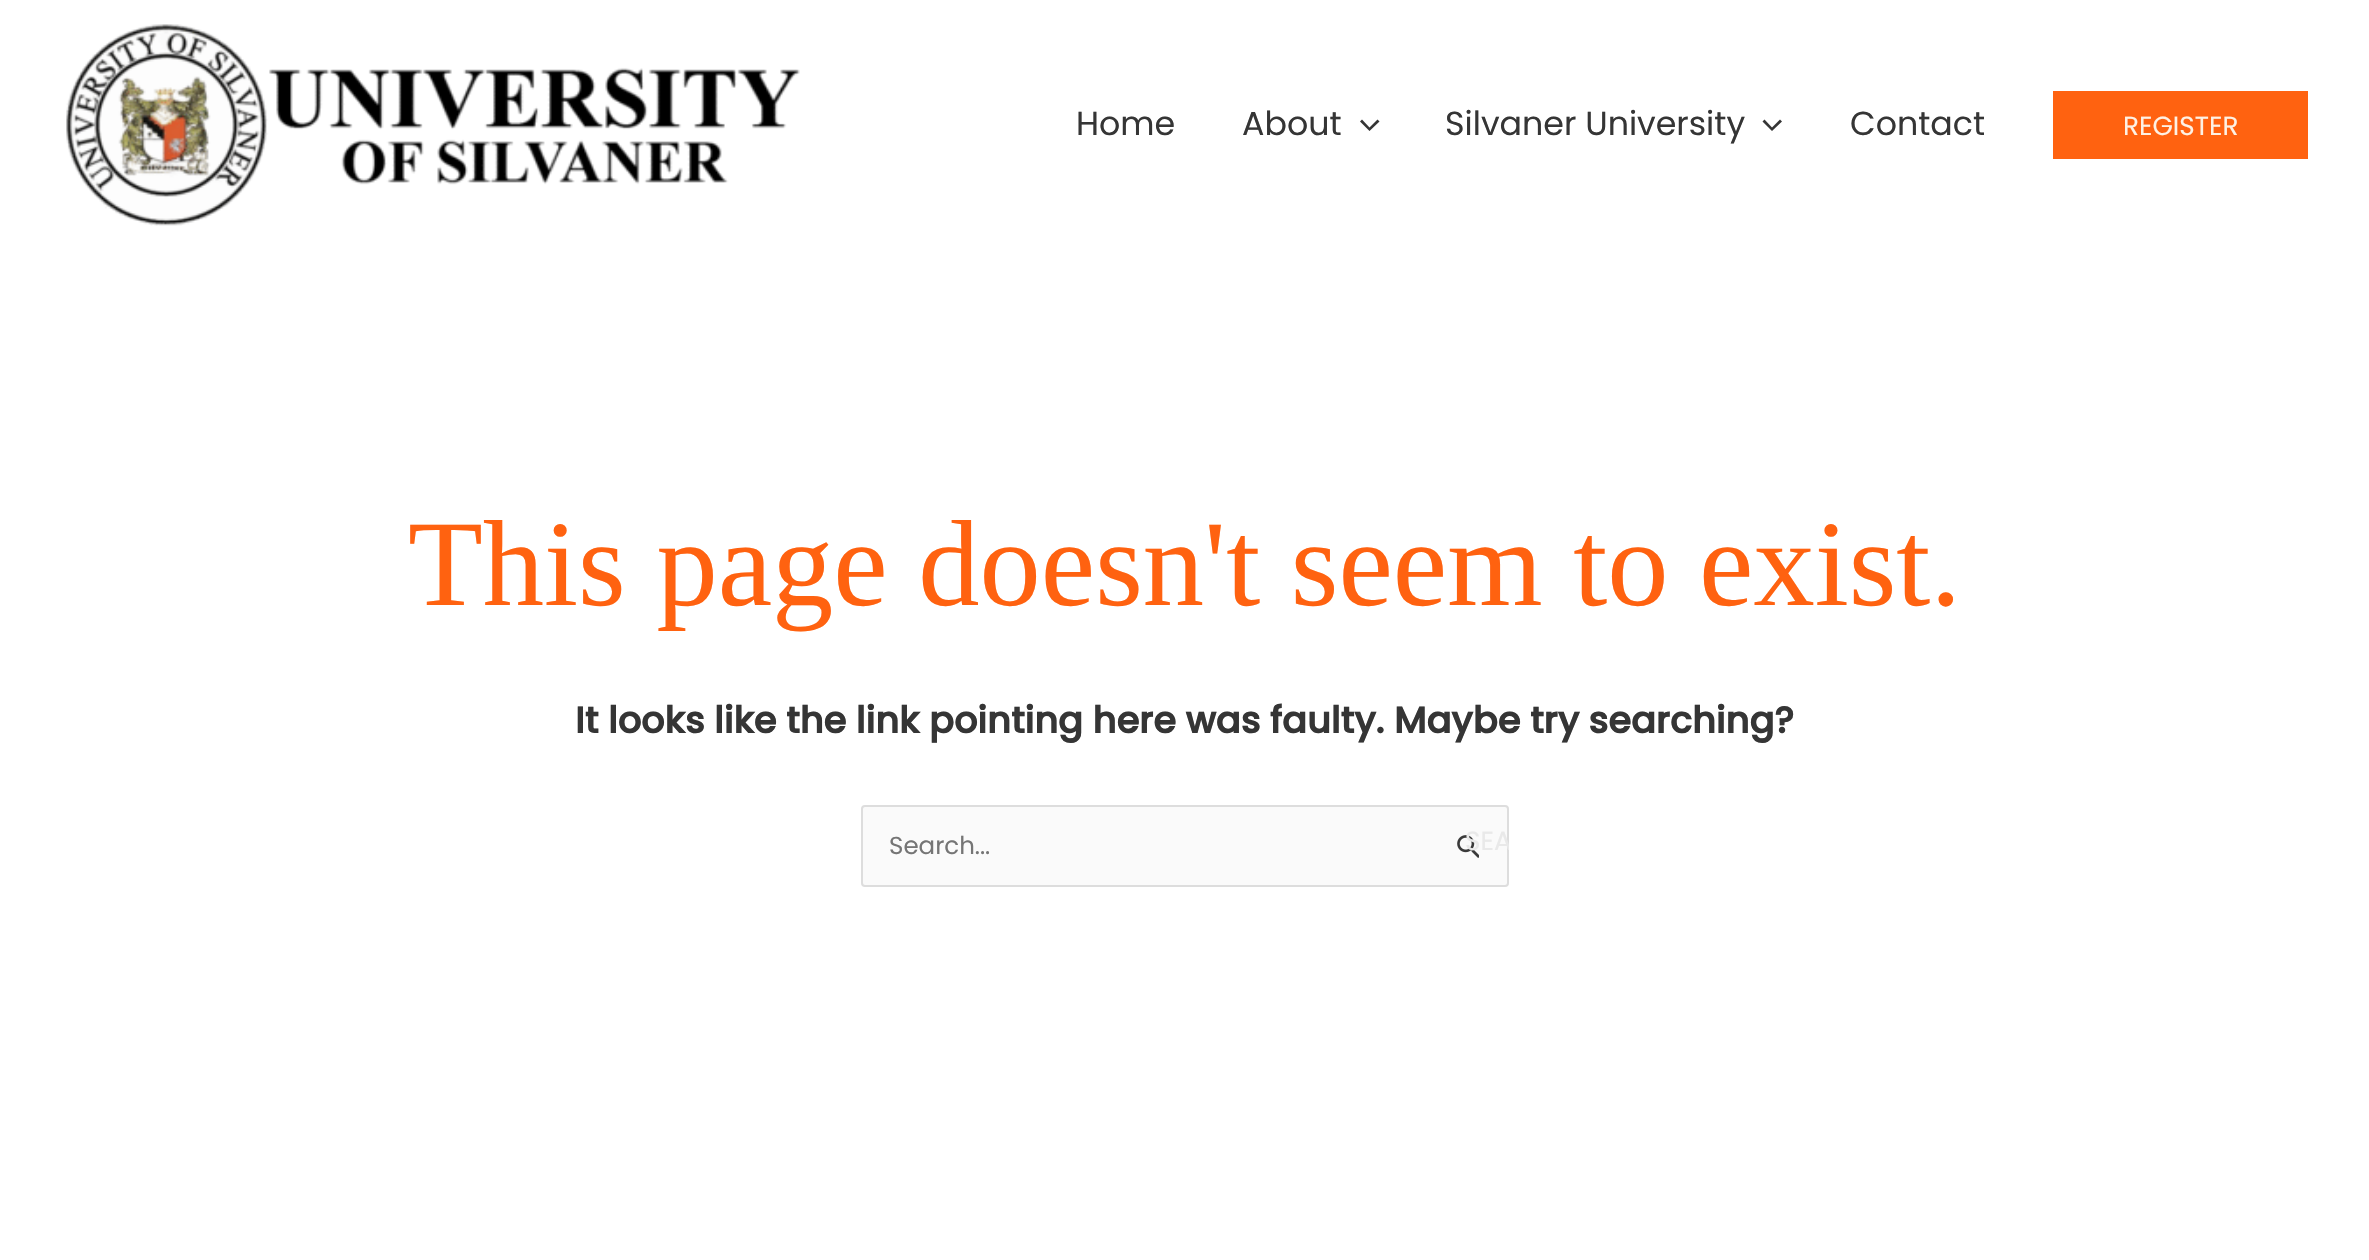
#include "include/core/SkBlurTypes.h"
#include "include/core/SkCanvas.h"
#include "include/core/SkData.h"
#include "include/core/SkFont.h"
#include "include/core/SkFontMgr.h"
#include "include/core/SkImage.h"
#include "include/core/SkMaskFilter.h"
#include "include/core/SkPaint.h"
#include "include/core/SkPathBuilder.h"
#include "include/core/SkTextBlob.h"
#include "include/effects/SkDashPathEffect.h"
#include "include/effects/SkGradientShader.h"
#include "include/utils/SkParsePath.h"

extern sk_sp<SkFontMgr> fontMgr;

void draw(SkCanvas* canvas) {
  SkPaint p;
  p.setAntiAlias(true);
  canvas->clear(SK_ColorWHITE);
  canvas->drawImageRect(SkImages::DeferredFromEncodedData(SkData::MakeFromFileName("images/1.png")), SkRect::MakeLTRB(66, 24, 800, 226), SkSamplingOptions());
  p.setColor(SkColorSetRGB(53, 53, 53));
  canvas->drawPath(SkPathBuilder().moveTo(1360, 121.5f).lineTo(1369.5f, 131).lineTo(1379.5f, 121.5f).lineTo(1377.5f, 119.5f).lineTo(1369.5f, 127.5f).lineTo(1362, 119.5f).close().detach(), p);
  canvas->drawPath(SkPathBuilder().moveTo(1762.5f, 121.5f).lineTo(1772, 131).lineTo(1782, 121.5f).lineTo(1780, 119.5f).lineTo(1772, 127.5f).lineTo(1764.5f, 119.5f).close().detach(), p);
  p.setColor(SkColorSetRGB(255, 98, 16));
  canvas->drawRect(SkRect::MakeLTRB(2053, 91, 2308, 159), p);
  p.setColor(SkColorSetRGB(250, 250, 250));
  canvas->drawRoundRect(SkRect::MakeLTRB(862, 806, 1508, 886), 3, 3, p);
  p.setStyle(SkPaint::kStroke_Style);
  p.setStrokeWidth(2);
  p.setColor(SkColorSetRGB(221, 221, 221));
  canvas->drawRoundRect(SkRect::MakeLTRB(862, 806, 1508, 886), 3, 3, p);
  canvas->drawImageRect(SkImages::DeferredFromEncodedData(SkData::MakeFromFileName("images/2.png")), SkRect::MakeLTRB(1457, 835, 1479, 858), SkSamplingOptions());
  SkFont font1(fontMgr->matchFamilyStyle("Poppins", SkFontStyle::Normal()), 33.25f);
  font1.setSubpixel(true);
  p.setStyle(SkPaint::kFill_Style);
  p.setColor(SkColorSetRGB(53, 53, 53));
  canvas->drawString("Home", 1076, 135, font1, p);
  canvas->drawString("About", 1242, 135, font1, p);
  canvas->drawString("Silvaner University", 1445, 135, font1, p);
  canvas->drawString("Contact", 1850, 135, font1, p);
  SkFont font2(fontMgr->matchFamilyStyle("Poppins", SkFontStyle::Normal()), 26.25f);
  font2.setSubpixel(true);
  p.setColor(SkColorSetRGB(254, 241, 228));
  canvas->drawString("REGISTER", 2123, 135, font2, p);
  SkFont font3(fontMgr->matchFamilyStyle("Liberation Serif", SkFontStyle::Normal()), 122.5f);
  font3.setSubpixel(true);
  p.setColor(SkColorSetRGB(255, 98, 16));
  canvas->drawString("This page doesn't seem to exist.", 408, 605, font3, p);
  SkFont font4(fontMgr->matchFamilyStyle("Poppins", SkFontStyle::Bold()), 36.75f);
  font4.setSubpixel(true);
  p.setColor(SkColorSetRGB(53, 53, 53));
  canvas->drawString("It looks like the link pointing here was faulty. Maybe try searching?", 575, 733, font4, p);
  SkFont font5(fontMgr->matchFamilyStyle("Poppins", SkFontStyle::Normal()), 24.5f);
  font5.setSubpixel(true);
  p.setColor(SkColorSetRGB(117, 117, 117));
  canvas->drawString("Search...", 889, 854, font5, p);
  canvas->save();
  canvas->clipPath(SkPathBuilder().moveTo(1434, 805).lineTo(1505, 805).cubicTo(1507, 805, 1509, 807, 1509, 809).lineTo(1509, 873).cubicTo(1509, 875, 1507, 877, 1505, 877).lineTo(1434, 877).cubicTo(1432, 877, 1430, 875, 1430, 873).lineTo(1430, 809).cubicTo(1430, 807, 1432, 805, 1434, 805).close().detach(), true);
  p.setColor(SkColorSetRGB(233, 233, 233));
  canvas->drawString("SEA", 1465, 850, font2, p);
  canvas->restore();
}
